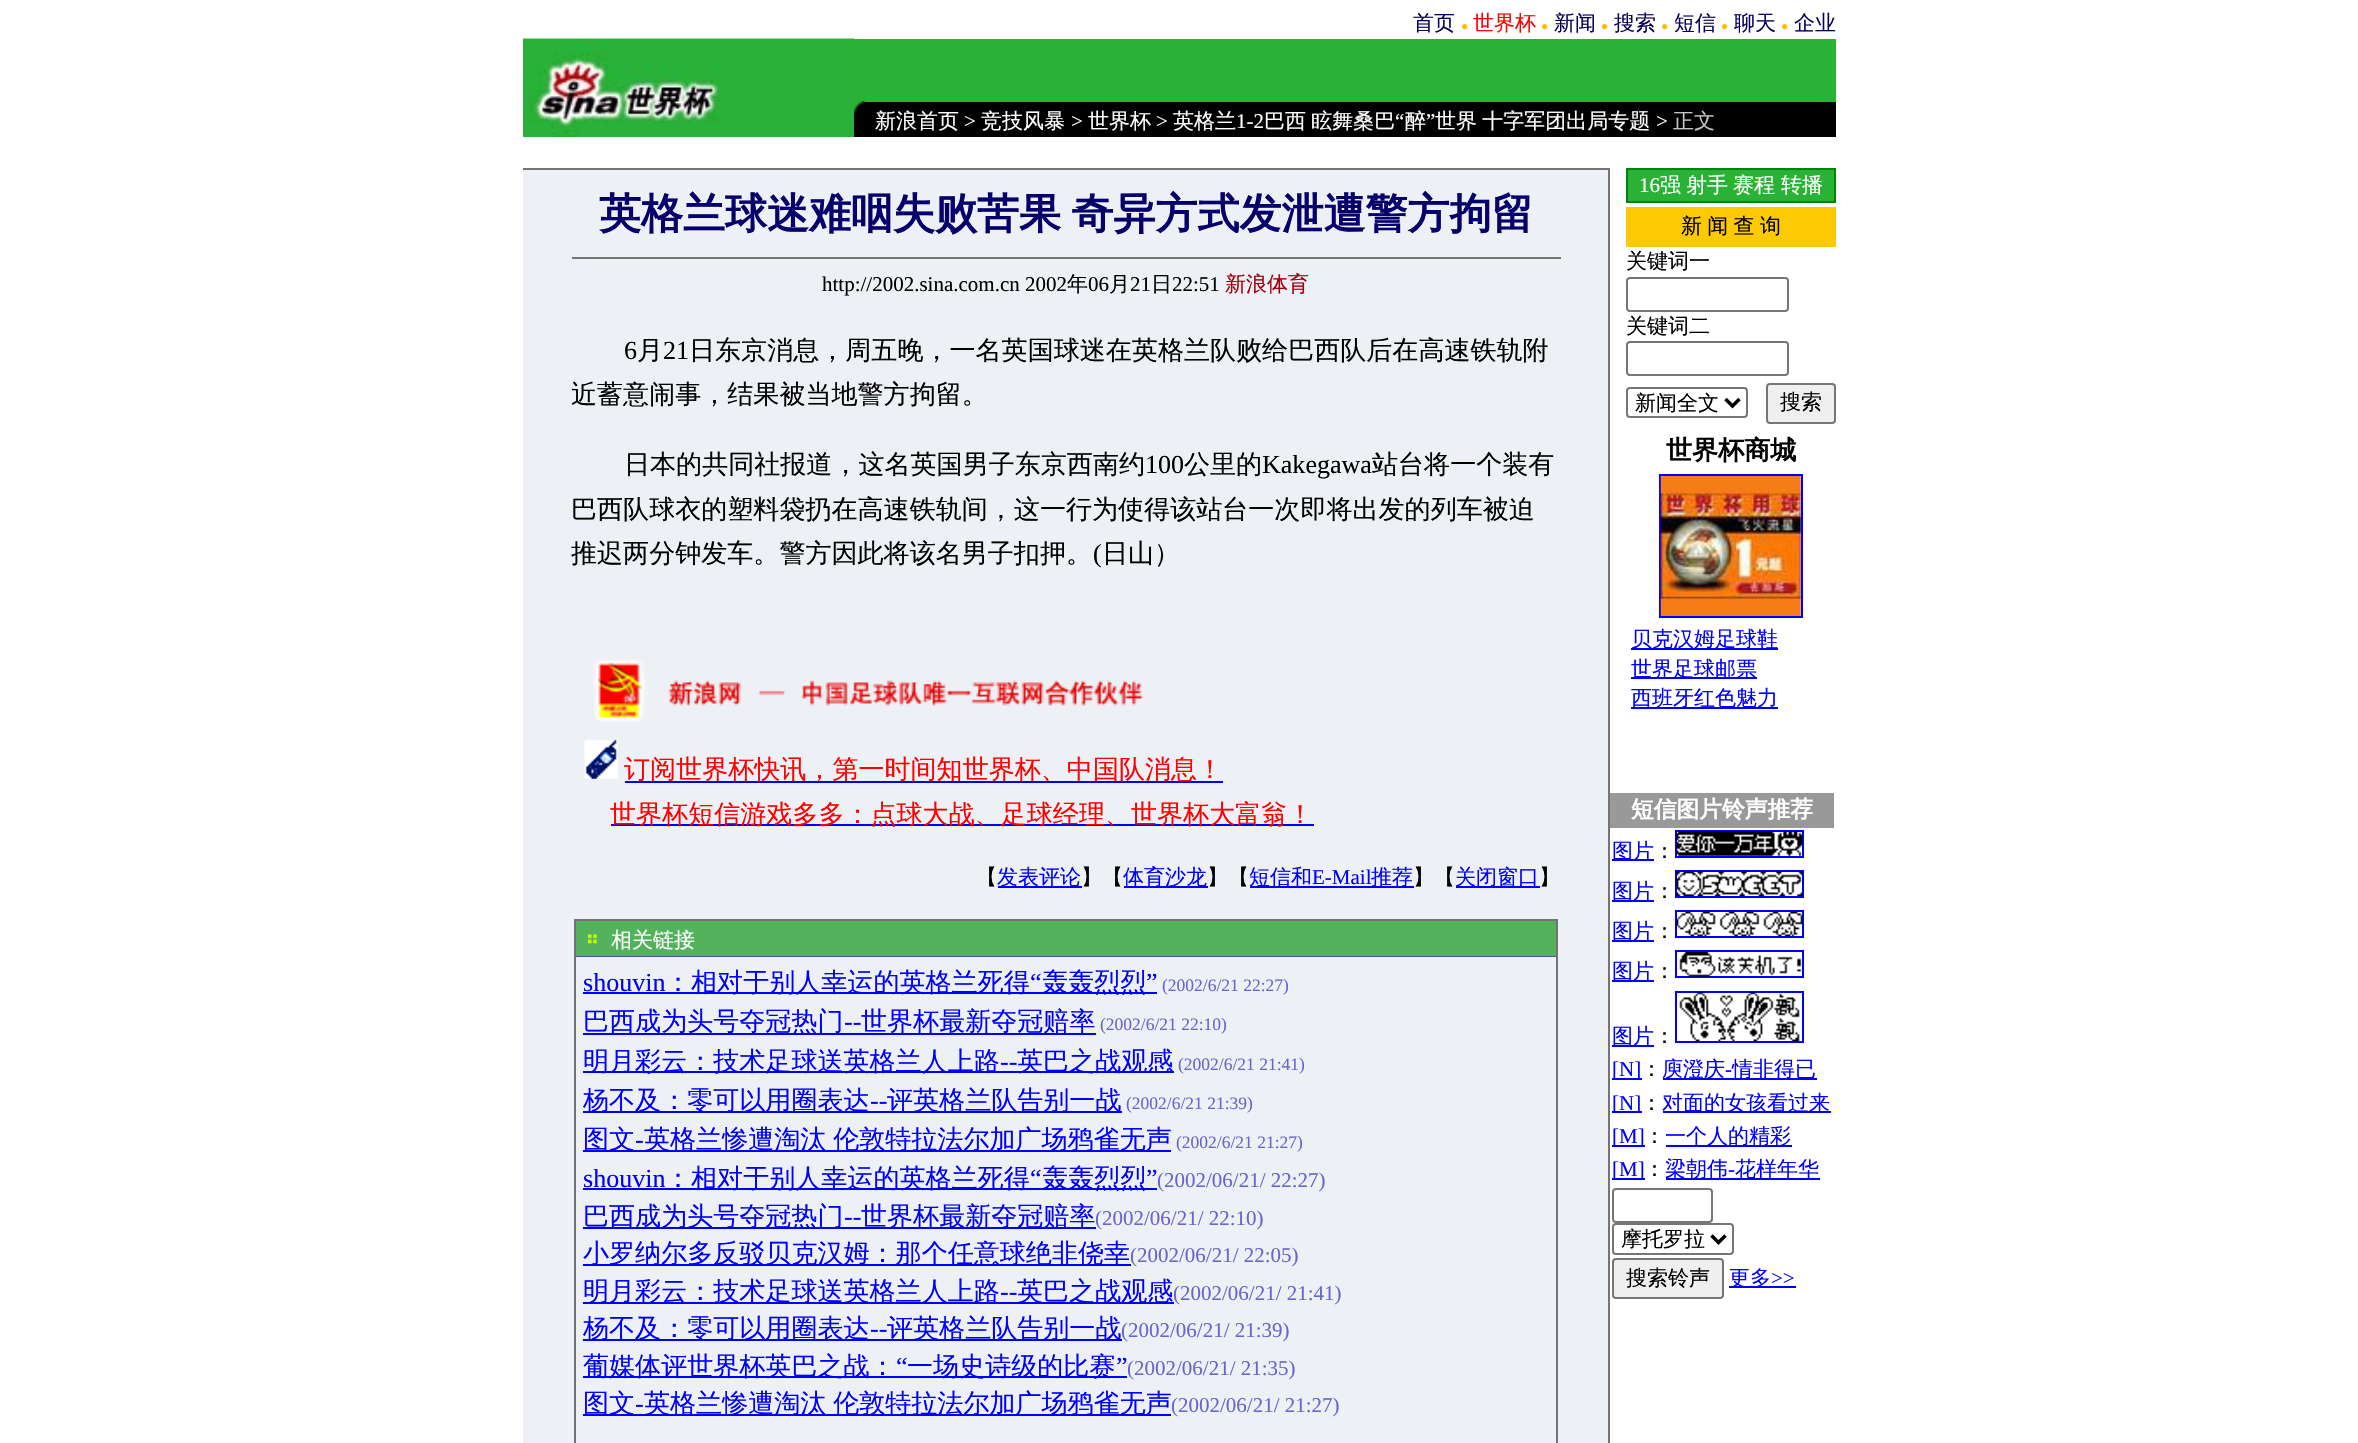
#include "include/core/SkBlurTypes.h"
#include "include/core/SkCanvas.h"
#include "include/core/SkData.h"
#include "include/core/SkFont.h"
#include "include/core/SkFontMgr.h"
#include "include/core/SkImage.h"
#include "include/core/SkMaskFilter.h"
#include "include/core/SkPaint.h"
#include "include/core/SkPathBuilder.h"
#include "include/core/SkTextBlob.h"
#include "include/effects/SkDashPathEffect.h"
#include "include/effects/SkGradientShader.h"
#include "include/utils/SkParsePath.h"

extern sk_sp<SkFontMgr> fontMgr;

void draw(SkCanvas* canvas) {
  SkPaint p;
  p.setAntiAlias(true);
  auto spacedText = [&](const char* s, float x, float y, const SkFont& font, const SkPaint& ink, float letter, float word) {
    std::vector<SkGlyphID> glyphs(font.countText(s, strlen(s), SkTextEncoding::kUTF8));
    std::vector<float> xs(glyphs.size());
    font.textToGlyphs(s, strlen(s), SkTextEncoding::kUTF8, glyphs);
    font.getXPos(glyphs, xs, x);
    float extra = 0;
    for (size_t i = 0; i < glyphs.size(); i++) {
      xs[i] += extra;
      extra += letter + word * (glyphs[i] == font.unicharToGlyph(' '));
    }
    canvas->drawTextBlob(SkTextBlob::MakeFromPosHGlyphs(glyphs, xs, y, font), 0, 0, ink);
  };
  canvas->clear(SK_ColorWHITE);
  p.setColor(SkColorSetRGB(42, 178, 54));
  canvas->drawRect(SkRect::MakeLTRB(523, 39, 1836, 137), p);
  canvas->drawImageRect(SkImages::DeferredFromEncodedData(SkData::MakeFromFileName("images/1.png")), SkRect::MakeLTRB(523, 38, 854, 137), SkSamplingOptions());
  p.setColor(SK_ColorBLACK);
  canvas->drawRect(SkRect::MakeLTRB(854, 102, 1836, 137), p);
  canvas->drawImageRect(SkImages::DeferredFromEncodedData(SkData::MakeFromFileName("images/2.png")), SkRect::MakeLTRB(854, 101, 865, 114), SkSamplingOptions());
  p.setColor(SkColorSetRGB(237, 240, 245));
  canvas->drawRect(SkRect::MakeLTRB(523, 170, 1608, 1443), p);
  p.setColor(SkColorSetRGB(116, 116, 116));
  canvas->drawRect(SkRect::MakeLTRB(523, 168, 1608, 170), p);
  canvas->drawRect(SkRect::MakeLTRB(572, 257, 1561, 259), p);
  canvas->drawImageRect(SkImages::DeferredFromEncodedData(SkData::MakeFromFileName("images/3.png")), SkRect::MakeLTRB(593, 659, 1144, 722), SkSamplingOptions());
  canvas->drawImageRect(SkImages::DeferredFromEncodedData(SkData::MakeFromFileName("images/4.png")), SkRect::MakeLTRB(584, 740, 618, 779), SkSamplingOptions());
  p.setColor(SkColorSetRGB(0, 0, 255));
  canvas->drawRect(SkRect::MakeLTRB(625, 781, 1223, 783), p);
  canvas->drawRect(SkRect::MakeLTRB(611, 824, 1314, 826), p);
  canvas->drawRect(SkRect::MakeLTRB(998, 886, 1082, 888), p);
  canvas->drawRect(SkRect::MakeLTRB(1124, 886, 1208, 888), p);
  canvas->drawRect(SkRect::MakeLTRB(1250, 886, 1414, 888), p);
  canvas->drawRect(SkRect::MakeLTRB(1456, 886, 1540, 888), p);
  p.setColor(SkColorSetRGB(115, 115, 115));
  canvas->drawRect(SkRect::MakeLTRB(574, 919, 1558, 1443), p);
  p.setColor(SkColorSetRGB(83, 178, 91));
  canvas->drawRect(SkRect::MakeLTRB(576, 921, 1556, 956), p);
  canvas->drawImageRect(SkImages::DeferredFromEncodedData(SkData::MakeFromFileName("images/5.png")), SkRect::MakeLTRB(588, 934, 597, 944), SkSamplingOptions());
  p.setColor(SkColorSetRGB(85, 80, 162));
  canvas->drawRect(SkRect::MakeLTRB(576, 956, 1556, 957), p);
  p.setColor(SkColorSetRGB(237, 240, 245));
  canvas->drawRect(SkRect::MakeLTRB(576, 957, 1556, 1443), p);
  p.setColor(SkColorSetRGB(0, 0, 255));
  canvas->drawRect(SkRect::MakeLTRB(583, 992, 1157, 994), p);
  canvas->drawRect(SkRect::MakeLTRB(583, 1033, 1096, 1035), p);
  canvas->drawRect(SkRect::MakeLTRB(583, 1071, 1174, 1073), p);
  canvas->drawRect(SkRect::MakeLTRB(583, 1111, 1122, 1113), p);
  canvas->drawRect(SkRect::MakeLTRB(583, 1150, 1171, 1152), p);
  canvas->drawRect(SkRect::MakeLTRB(583, 1188, 1157, 1190), p);
  canvas->drawRect(SkRect::MakeLTRB(583, 1227, 1096, 1229), p);
  canvas->drawRect(SkRect::MakeLTRB(583, 1264, 1131, 1266), p);
  canvas->drawRect(SkRect::MakeLTRB(583, 1302, 1174, 1304), p);
  canvas->drawRect(SkRect::MakeLTRB(583, 1339, 1122, 1341), p);
  canvas->drawRect(SkRect::MakeLTRB(583, 1376, 1127, 1378), p);
  canvas->drawRect(SkRect::MakeLTRB(583, 1414, 1171, 1416), p);
  p.setColor(SkColorSetRGB(116, 116, 116));
  canvas->drawRect(SkRect::MakeLTRB(1608, 168, 1610, 1443), p);
  p.setColor(SkColorSetRGB(0, 133, 12));
  canvas->drawRect(SkRect::MakeLTRB(1626, 168, 1836, 170), p);
  canvas->drawRect(SkRect::MakeLTRB(1626, 170, 1628, 201), p);
  p.setColor(SkColorSetRGB(42, 178, 54));
  canvas->drawRect(SkRect::MakeLTRB(1628, 170, 1834, 201), p);
  p.setColor(SkColorSetRGB(0, 133, 12));
  canvas->drawRect(SkRect::MakeLTRB(1834, 170, 1836, 201), p);
  canvas->drawRect(SkRect::MakeLTRB(1626, 201, 1836, 203), p);
  p.setColor(SkColorSetRGB(253, 201, 3));
  canvas->drawRect(SkRect::MakeLTRB(1626, 207, 1836, 247), p);
  p.setStyle(SkPaint::kStroke_Style);
  p.setStrokeWidth(2);
  p.setColor(SkColorSetRGB(118, 118, 118));
  canvas->drawRoundRect(SkRect::MakeLTRB(1627, 278, 1788, 311), 3, 3, p);
  canvas->drawRoundRect(SkRect::MakeLTRB(1627, 342, 1788, 375), 3, 3, p);
  canvas->drawRoundRect(SkRect::MakeLTRB(1627, 388, 1747, 417), 3, 3, p);
  p.setStrokeWidth(3.5f);
  p.setColor(SK_ColorBLACK);
  canvas->drawPath(SkPathBuilder().moveTo(1725.5f, 399).lineTo(1732.5f, 406).lineTo(1739.5f, 399).detach(), p);
  p.setStyle(SkPaint::kFill_Style);
  p.setColor(SkColorSetRGB(239, 239, 239));
  canvas->drawRoundRect(SkRect::MakeLTRB(1767, 384, 1835, 423), 3, 3, p);
  p.setStyle(SkPaint::kStroke_Style);
  p.setStrokeWidth(2);
  p.setColor(SkColorSetRGB(118, 118, 118));
  canvas->drawRoundRect(SkRect::MakeLTRB(1767, 384, 1835, 423), 3, 3, p);
  p.setColor(SkColorSetRGB(0, 0, 255));
  canvas->drawRect(SkRect::MakeLTRB(1660, 475, 1802, 617), p);
  canvas->drawImageRect(SkImages::DeferredFromEncodedData(SkData::MakeFromFileName("images/6.png")), SkRect::MakeLTRB(1660, 476, 1801, 616), SkSamplingOptions());
  p.setStyle(SkPaint::kFill_Style);
  canvas->drawRect(SkRect::MakeLTRB(1631, 648, 1778, 650), p);
  canvas->drawRect(SkRect::MakeLTRB(1631, 677, 1757, 679), p);
  canvas->drawRect(SkRect::MakeLTRB(1631, 707, 1778, 709), p);
  p.setColor(SkColorSetRGB(153, 153, 153));
  canvas->drawRect(SkRect::MakeLTRB(1610, 793, 1834, 828), p);
  p.setStyle(SkPaint::kStroke_Style);
  p.setColor(SkColorSetRGB(0, 0, 255));
  canvas->drawRect(SkRect::MakeLTRB(1676, 831, 1803, 857), p);
  p.setStyle(SkPaint::kFill_Style);
  canvas->drawRect(SkRect::MakeLTRB(1612, 859, 1654, 861), p);
  canvas->drawImageRect(SkImages::DeferredFromEncodedData(SkData::MakeFromFileName("images/7.png")), SkRect::MakeLTRB(1676, 831, 1803, 856), SkSamplingOptions());
  p.setStyle(SkPaint::kStroke_Style);
  canvas->drawRect(SkRect::MakeLTRB(1676, 871, 1803, 897), p);
  p.setStyle(SkPaint::kFill_Style);
  canvas->drawRect(SkRect::MakeLTRB(1612, 900, 1654, 902), p);
  canvas->drawImageRect(SkImages::DeferredFromEncodedData(SkData::MakeFromFileName("images/8.png")), SkRect::MakeLTRB(1676, 871, 1803, 896), SkSamplingOptions());
  p.setStyle(SkPaint::kStroke_Style);
  canvas->drawRect(SkRect::MakeLTRB(1676, 911, 1803, 937), p);
  p.setStyle(SkPaint::kFill_Style);
  canvas->drawRect(SkRect::MakeLTRB(1612, 940, 1654, 942), p);
  canvas->drawImageRect(SkImages::DeferredFromEncodedData(SkData::MakeFromFileName("images/9.png")), SkRect::MakeLTRB(1676, 911, 1803, 937), SkSamplingOptions());
  p.setStyle(SkPaint::kStroke_Style);
  canvas->drawRect(SkRect::MakeLTRB(1676, 951, 1803, 977), p);
  p.setStyle(SkPaint::kFill_Style);
  canvas->drawRect(SkRect::MakeLTRB(1612, 980, 1654, 982), p);
  canvas->drawImageRect(SkImages::DeferredFromEncodedData(SkData::MakeFromFileName("images/10.png")), SkRect::MakeLTRB(1679, 952, 1802, 977), SkSamplingOptions());
  p.setStyle(SkPaint::kStroke_Style);
  canvas->drawRect(SkRect::MakeLTRB(1676, 992, 1803, 1042), p);
  p.setStyle(SkPaint::kFill_Style);
  canvas->drawRect(SkRect::MakeLTRB(1612, 1045, 1654, 1047), p);
  canvas->drawImageRect(SkImages::DeferredFromEncodedData(SkData::MakeFromFileName("images/11.png")), SkRect::MakeLTRB(1679, 992, 1800, 1042), SkSamplingOptions());
  canvas->drawRect(SkRect::MakeLTRB(1612, 1078, 1642, 1080), p);
  canvas->drawRect(SkRect::MakeLTRB(1663, 1078, 1817, 1080), p);
  canvas->drawRect(SkRect::MakeLTRB(1612, 1111, 1642, 1113), p);
  canvas->drawRect(SkRect::MakeLTRB(1663, 1111, 1831, 1113), p);
  canvas->drawRect(SkRect::MakeLTRB(1612, 1145, 1645, 1147), p);
  canvas->drawRect(SkRect::MakeLTRB(1666, 1145, 1792, 1147), p);
  canvas->drawRect(SkRect::MakeLTRB(1612, 1178, 1645, 1180), p);
  canvas->drawRect(SkRect::MakeLTRB(1666, 1178, 1820, 1180), p);
  p.setStyle(SkPaint::kStroke_Style);
  p.setColor(SkColorSetRGB(118, 118, 118));
  canvas->drawRoundRect(SkRect::MakeLTRB(1613, 1189, 1712, 1222), 3, 3, p);
  canvas->drawRoundRect(SkRect::MakeLTRB(1613, 1224, 1733, 1254), 3, 3, p);
  p.setStrokeWidth(3.5f);
  p.setColor(SK_ColorBLACK);
  canvas->drawPath(SkPathBuilder().moveTo(1711.5f, 1235.5f).lineTo(1718.5f, 1242.5f).lineTo(1725.5f, 1235.5f).detach(), p);
  p.setStyle(SkPaint::kFill_Style);
  p.setColor(SkColorSetRGB(239, 239, 239));
  canvas->drawRoundRect(SkRect::MakeLTRB(1613, 1259, 1723, 1298), 3, 3, p);
  p.setStyle(SkPaint::kStroke_Style);
  p.setStrokeWidth(2);
  p.setColor(SkColorSetRGB(118, 118, 118));
  canvas->drawRoundRect(SkRect::MakeLTRB(1613, 1259, 1723, 1298), 3, 3, p);
  p.setStyle(SkPaint::kFill_Style);
  p.setColor(SkColorSetRGB(0, 0, 255));
  canvas->drawRect(SkRect::MakeLTRB(1729, 1286, 1796, 1288), p);
  SkFont font1(fontMgr->matchFamilyStyle("WenQuanYi Zen Hei", SkFontStyle(500, SkFontStyle::kNormal_Width, SkFontStyle::kUpright_Slant)), 21);
  font1.setSubpixel(true);
  p.setColor(SkColorSetRGB(7, 1, 91));
  canvas->drawString("首页", 1413, 30, font1, p);
  SkFont font2(fontMgr->matchFamilyStyle("Liberation Serif", SkFontStyle::Normal()), 12);
  font2.setSubpixel(true);
  p.setColor(SkColorSetRGB(255, 189, 0));
  canvas->drawString("●", 1461, 30, font2, p);
  p.setColor(SkColorSetRGB(255, 0, 0));
  canvas->drawString("世界杯", 1473, 30, font1, p);
  p.setColor(SkColorSetRGB(255, 189, 0));
  canvas->drawString("●", 1541, 30, font2, p);
  p.setColor(SkColorSetRGB(7, 1, 91));
  canvas->drawString("新闻", 1554, 30, font1, p);
  p.setColor(SkColorSetRGB(255, 189, 0));
  canvas->drawString("●", 1601, 30, font2, p);
  p.setColor(SkColorSetRGB(7, 1, 91));
  canvas->drawString("搜索", 1614, 30, font1, p);
  p.setColor(SkColorSetRGB(255, 189, 0));
  canvas->drawString("●", 1661, 30, font2, p);
  p.setColor(SkColorSetRGB(7, 1, 91));
  canvas->drawString("短信", 1674, 30, font1, p);
  p.setColor(SkColorSetRGB(255, 189, 0));
  canvas->drawString("●", 1721, 30, font2, p);
  p.setColor(SkColorSetRGB(7, 1, 91));
  canvas->drawString("聊天", 1734, 30, font1, p);
  p.setColor(SkColorSetRGB(255, 189, 0));
  canvas->drawString("●", 1781, 30, font2, p);
  p.setColor(SkColorSetRGB(7, 1, 91));
  canvas->drawString("企业", 1794, 30, font1, p);
  p.setColor(SK_ColorWHITE);
  canvas->drawString("新浪首页", 875, 128, font1, p);
  SkFont font3(fontMgr->matchFamilyStyle("Liberation Serif", SkFontStyle::Normal()), 21);
  font3.setSubpixel(true);
  canvas->drawString(">", 964, 128, font3, p);
  canvas->drawString("竞技风暴", 981, 128, font1, p);
  canvas->drawString(">", 1071, 128, font3, p);
  canvas->drawString("世界杯", 1088, 128, font1, p);
  canvas->drawString(">", 1156, 128, font3, p);
  canvas->drawString("英格兰", 1173, 128, font1, p);
  canvas->drawString("1-2", 1236, 128, font3, p);
  spacedText("巴西 眩舞桑巴", 1264, 128, font1, p, 0, -1);
  canvas->drawString("“", 1395, 128, font3, p);
  canvas->drawString("醉", 1405, 128, font1, p);
  canvas->drawString("”", 1426, 128, font3, p);
  spacedText("世界 十字军团出局专题", 1435, 128, font1, p, 0, -1);
  canvas->drawString(">", 1656, 128, font3, p);
  p.setColor(SkColorSetRGB(196, 196, 192));
  canvas->drawString("正文", 1673, 128, font1, p);
  SkFont font4(fontMgr->matchFamilyStyle("WenQuanYi Zen Hei", SkFontStyle::Bold()), 42);
  font4.setSubpixel(true);
  p.setColor(SkColorSetRGB(5, 0, 108));
  spacedText("英格兰球迷难咽失败苦果 奇异方式发泄遭警方拘留", 599, 228, font4, p, 0, -2);
  p.setColor(SK_ColorBLACK);
  canvas->drawString("http://2002.sina.com.cn 2002", 822, 291, font3, p);
  canvas->drawString("年", 1067, 291, font1, p);
  canvas->drawString("06", 1088, 291, font3, p);
  canvas->drawString("月", 1109, 291, font1, p);
  canvas->drawString("21", 1130, 291, font3, p);
  canvas->drawString("日", 1151, 291, font1, p);
  canvas->drawString("22:51", 1172, 291, font3, p);
  p.setColor(SkColorSetRGB(162, 0, 16));
  canvas->drawString("新浪体育", 1225, 291, font1, p);
  SkFont font5(fontMgr->matchFamilyStyle("Liberation Serif", SkFontStyle::Normal()), 26.05f);
  font5.setSubpixel(true);
  p.setColor(SK_ColorBLACK);
  canvas->drawString("6", 624, 359, font5, p);
  SkFont font6(fontMgr->matchFamilyStyle("WenQuanYi Zen Hei", SkFontStyle(500, SkFontStyle::kNormal_Width, SkFontStyle::kUpright_Slant)), 26.05f);
  font6.setSubpixel(true);
  canvas->drawString("月", 637, 359, font6, p);
  canvas->drawString("21", 663, 359, font5, p);
  canvas->drawString("日东京消息，周五晚，一名英国球迷在英格兰队败给巴西队后在高速铁轨附", 689, 359, font6, p);
  canvas->drawString("近蓄意闹事，结果被当地警方拘留。", 571, 403, font6, p);
  canvas->drawString("日本的共同社报道，这名英国男子东京西南约", 624, 473, font6, p);
  canvas->drawString("100", 1145, 473, font5, p);
  canvas->drawString("公里的", 1184, 473, font6, p);
  canvas->drawString("Kakegawa", 1262, 473, font5, p);
  canvas->drawString("站台将一个装有", 1372, 473, font6, p);
  canvas->drawString("巴西队球衣的塑料袋扔在高速铁轨间，这一行为使得该站台一次即将出发的列车被迫", 571, 518, font6, p);
  canvas->drawString("推迟两分钟发车。警方因此将该名男子扣押。", 571, 562, font6, p);
  canvas->drawString("(", 1093, 562, font5, p);
  canvas->drawString("日山）", 1102, 562, font6, p);
  p.setColor(SkColorSetRGB(255, 0, 0));
  canvas->drawString("订阅世界杯快讯，第一时间知世界杯、中国队消息！", 624, 778, font6, p);
  canvas->drawString("世界杯短信游戏多多：点球大战、足球经理、世界杯大富翁！", 610, 823, font6, p);
  p.setColor(SK_ColorBLACK);
  canvas->drawString("【", 976, 884, font1, p);
  p.setColor(SkColorSetRGB(0, 0, 255));
  canvas->drawString("发表评论", 997, 884, font1, p);
  p.setColor(SK_ColorBLACK);
  canvas->drawString("】【", 1081, 884, font1, p);
  p.setColor(SkColorSetRGB(0, 0, 255));
  canvas->drawString("体育沙龙", 1123, 884, font1, p);
  p.setColor(SK_ColorBLACK);
  canvas->drawString("】【", 1207, 884, font1, p);
  p.setColor(SkColorSetRGB(0, 0, 255));
  canvas->drawString("短信和", 1249, 884, font1, p);
  canvas->drawString("E-Mail", 1312, 884, font3, p);
  canvas->drawString("推荐", 1371, 884, font1, p);
  p.setColor(SK_ColorBLACK);
  canvas->drawString("】【", 1413, 884, font1, p);
  p.setColor(SkColorSetRGB(0, 0, 255));
  canvas->drawString("关闭窗口", 1455, 884, font1, p);
  p.setColor(SK_ColorBLACK);
  canvas->drawString("】", 1539, 884, font1, p);
  p.setColor(SK_ColorWHITE);
  canvas->drawString("相关链接", 611, 947, font1, p);
  p.setColor(SkColorSetRGB(0, 0, 255));
  canvas->drawString("shouvin", 583, 991, font5, p);
  canvas->drawString("：相对于别人幸运的英格兰死得", 665, 991, font6, p);
  canvas->drawString("“", 1030, 991, font5, p);
  canvas->drawString("轰轰烈烈", 1042, 991, font6, p);
  canvas->drawString("”", 1146, 991, font5, p);
  SkFont font7(fontMgr->matchFamilyStyle("Liberation Serif", SkFontStyle::Normal()), 17.5f);
  font7.setSubpixel(true);
  p.setColor(SkColorSetRGB(102, 102, 204));
  canvas->drawString("(2002/6/21 22:27)", 1162, 991, font7, p);
  p.setColor(SkColorSetRGB(0, 0, 255));
  canvas->drawString("巴西成为头号夺冠热门", 583, 1030, font6, p);
  canvas->drawString("--", 844, 1030, font5, p);
  canvas->drawString("世界杯最新夺冠赔率", 861, 1030, font6, p);
  p.setColor(SkColorSetRGB(102, 102, 204));
  canvas->drawString("(2002/6/21 22:10)", 1100, 1030, font7, p);
  p.setColor(SkColorSetRGB(0, 0, 255));
  canvas->drawString("明月彩云：技术足球送英格兰人上路", 583, 1070, font6, p);
  canvas->drawString("--", 1000, 1070, font5, p);
  canvas->drawString("英巴之战观感", 1017, 1070, font6, p);
  p.setColor(SkColorSetRGB(102, 102, 204));
  canvas->drawString("(2002/6/21 21:41)", 1178, 1070, font7, p);
  p.setColor(SkColorSetRGB(0, 0, 255));
  canvas->drawString("杨不及：零可以用圈表达", 583, 1109, font6, p);
  canvas->drawString("--", 870, 1109, font5, p);
  canvas->drawString("评英格兰队告别一战", 887, 1109, font6, p);
  p.setColor(SkColorSetRGB(102, 102, 204));
  canvas->drawString("(2002/6/21 21:39)", 1126, 1109, font7, p);
  p.setColor(SkColorSetRGB(0, 0, 255));
  canvas->drawString("图文", 583, 1148, font6, p);
  canvas->drawString("-", 635, 1148, font5, p);
  spacedText("英格兰惨遭淘汰 伦敦特拉法尔加广场鸦雀无声", 644, 1148, font6, p, 0, -1);
  p.setColor(SkColorSetRGB(102, 102, 204));
  canvas->drawString("(2002/6/21 21:27)", 1176, 1148, font7, p);
  p.setColor(SkColorSetRGB(0, 0, 255));
  canvas->drawString("shouvin", 583, 1187, font5, p);
  canvas->drawString("：相对于别人幸运的英格兰死得", 665, 1187, font6, p);
  canvas->drawString("“", 1030, 1187, font5, p);
  canvas->drawString("轰轰烈烈", 1042, 1187, font6, p);
  canvas->drawString("”", 1146, 1187, font5, p);
  p.setColor(SkColorSetRGB(102, 102, 204));
  canvas->drawString("(2002/06/21/ 22:27)", 1157, 1187, font3, p);
  p.setColor(SkColorSetRGB(0, 0, 255));
  canvas->drawString("巴西成为头号夺冠热门", 583, 1225, font6, p);
  canvas->drawString("--", 844, 1225, font5, p);
  canvas->drawString("世界杯最新夺冠赔率", 861, 1225, font6, p);
  p.setColor(SkColorSetRGB(102, 102, 204));
  canvas->drawString("(2002/06/21/ 22:10)", 1095, 1225, font3, p);
  p.setColor(SkColorSetRGB(0, 0, 255));
  canvas->drawString("小罗纳尔多反驳贝克汉姆：那个任意球绝非侥幸", 583, 1262, font6, p);
  p.setColor(SkColorSetRGB(102, 102, 204));
  canvas->drawString("(2002/06/21/ 22:05)", 1130, 1262, font3, p);
  p.setColor(SkColorSetRGB(0, 0, 255));
  canvas->drawString("明月彩云：技术足球送英格兰人上路", 583, 1300, font6, p);
  canvas->drawString("--", 1000, 1300, font5, p);
  canvas->drawString("英巴之战观感", 1017, 1300, font6, p);
  p.setColor(SkColorSetRGB(102, 102, 204));
  canvas->drawString("(2002/06/21/ 21:41)", 1173, 1300, font3, p);
  p.setColor(SkColorSetRGB(0, 0, 255));
  canvas->drawString("杨不及：零可以用圈表达", 583, 1337, font6, p);
  canvas->drawString("--", 870, 1337, font5, p);
  canvas->drawString("评英格兰队告别一战", 887, 1337, font6, p);
  p.setColor(SkColorSetRGB(102, 102, 204));
  canvas->drawString("(2002/06/21/ 21:39)", 1121, 1337, font3, p);
  p.setColor(SkColorSetRGB(0, 0, 255));
  canvas->drawString("葡媒体评世界杯英巴之战：", 583, 1375, font6, p);
  canvas->drawString("“", 896, 1375, font5, p);
  canvas->drawString("一场史诗级的比赛", 907, 1375, font6, p);
  canvas->drawString("”", 1116, 1375, font5, p);
  p.setColor(SkColorSetRGB(102, 102, 204));
  canvas->drawString("(2002/06/21/ 21:35)", 1127, 1375, font3, p);
  p.setColor(SkColorSetRGB(0, 0, 255));
  canvas->drawString("图文", 583, 1412, font6, p);
  canvas->drawString("-", 635, 1412, font5, p);
  spacedText("英格兰惨遭淘汰 伦敦特拉法尔加广场鸦雀无声", 644, 1412, font6, p, 0, -1);
  p.setColor(SkColorSetRGB(102, 102, 204));
  canvas->drawString("(2002/06/21/ 21:27)", 1171, 1412, font3, p);
  p.setColor(SK_ColorWHITE);
  canvas->drawString("16", 1639, 192, font3, p);
  canvas->drawString("强", 1660, 192, font1, p);
  canvas->drawString("射手", 1686, 192, font1, p);
  canvas->drawString("赛程", 1733, 192, font1, p);
  canvas->drawString("转播", 1781, 192, font1, p);
  p.setColor(SK_ColorBLACK);
  spacedText("新 闻 查 询", 1681, 233, font1, p, 0, -1);
  canvas->drawString("关键词一", 1626, 268, font1, p);
  canvas->drawString("关键词二", 1626, 333, font1, p);
  canvas->drawString("新闻全文", 1635, 410, font1, p);
  canvas->drawString("搜索", 1780, 409, font1, p);
  SkFont font8(fontMgr->matchFamilyStyle("WenQuanYi Zen Hei", SkFontStyle::Bold()), 26.05f);
  font8.setSubpixel(true);
  canvas->drawString("世界杯商城", 1666, 459, font8, p);
  p.setColor(SkColorSetRGB(0, 0, 255));
  canvas->drawString("贝克汉姆足球鞋", 1631, 646, font1, p);
  canvas->drawString("世界足球邮票", 1631, 676, font1, p);
  canvas->drawString("西班牙红色魅力", 1631, 705, font1, p);
  SkFont font9(fontMgr->matchFamilyStyle("WenQuanYi Zen Hei", SkFontStyle::Bold()), 22.75f);
  font9.setSubpixel(true);
  p.setColor(SK_ColorWHITE);
  canvas->drawString("短信图片铃声推荐", 1631, 817, font9, p);
  p.setColor(SkColorSetRGB(0, 0, 255));
  canvas->drawString("图片", 1612, 858, font1, p);
  p.setColor(SK_ColorBLACK);
  canvas->drawString("：", 1654, 858, font1, p);
  p.setColor(SkColorSetRGB(0, 0, 255));
  canvas->drawString("图片", 1612, 898, font1, p);
  p.setColor(SK_ColorBLACK);
  canvas->drawString("：", 1654, 898, font1, p);
  p.setColor(SkColorSetRGB(0, 0, 255));
  canvas->drawString("图片", 1612, 938, font1, p);
  p.setColor(SK_ColorBLACK);
  canvas->drawString("：", 1654, 938, font1, p);
  p.setColor(SkColorSetRGB(0, 0, 255));
  canvas->drawString("图片", 1612, 978, font1, p);
  p.setColor(SK_ColorBLACK);
  canvas->drawString("：", 1654, 978, font1, p);
  p.setColor(SkColorSetRGB(0, 0, 255));
  canvas->drawString("图片", 1612, 1043, font1, p);
  p.setColor(SK_ColorBLACK);
  canvas->drawString("：", 1654, 1043, font1, p);
  p.setColor(SkColorSetRGB(0, 0, 255));
  canvas->drawString("[N]", 1612, 1076, font3, p);
  p.setColor(SK_ColorBLACK);
  canvas->drawString("：", 1641, 1076, font1, p);
  p.setColor(SkColorSetRGB(0, 0, 255));
  canvas->drawString("庾澄庆", 1662, 1076, font1, p);
  canvas->drawString("-", 1725, 1076, font3, p);
  canvas->drawString("情非得已", 1732, 1076, font1, p);
  canvas->drawString("[N]", 1612, 1110, font3, p);
  p.setColor(SK_ColorBLACK);
  canvas->drawString("：", 1641, 1110, font1, p);
  p.setColor(SkColorSetRGB(0, 0, 255));
  canvas->drawString("对面的女孩看过来", 1662, 1110, font1, p);
  canvas->drawString("[M]", 1612, 1143, font3, p);
  p.setColor(SK_ColorBLACK);
  canvas->drawString("：", 1644, 1143, font1, p);
  p.setColor(SkColorSetRGB(0, 0, 255));
  canvas->drawString("一个人的精彩", 1665, 1143, font1, p);
  canvas->drawString("[M]", 1612, 1176, font3, p);
  p.setColor(SK_ColorBLACK);
  canvas->drawString("：", 1644, 1176, font1, p);
  p.setColor(SkColorSetRGB(0, 0, 255));
  canvas->drawString("梁朝伟", 1665, 1176, font1, p);
  canvas->drawString("-", 1728, 1176, font3, p);
  canvas->drawString("花样年华", 1735, 1176, font1, p);
  p.setColor(SK_ColorBLACK);
  canvas->drawString("摩托罗拉", 1621, 1246, font1, p);
  canvas->drawString("搜索铃声", 1626, 1285, font1, p);
  p.setColor(SkColorSetRGB(0, 0, 255));
  canvas->drawString("更多", 1729, 1285, font1, p);
  canvas->drawString(">>", 1771, 1285, font3, p);
}
